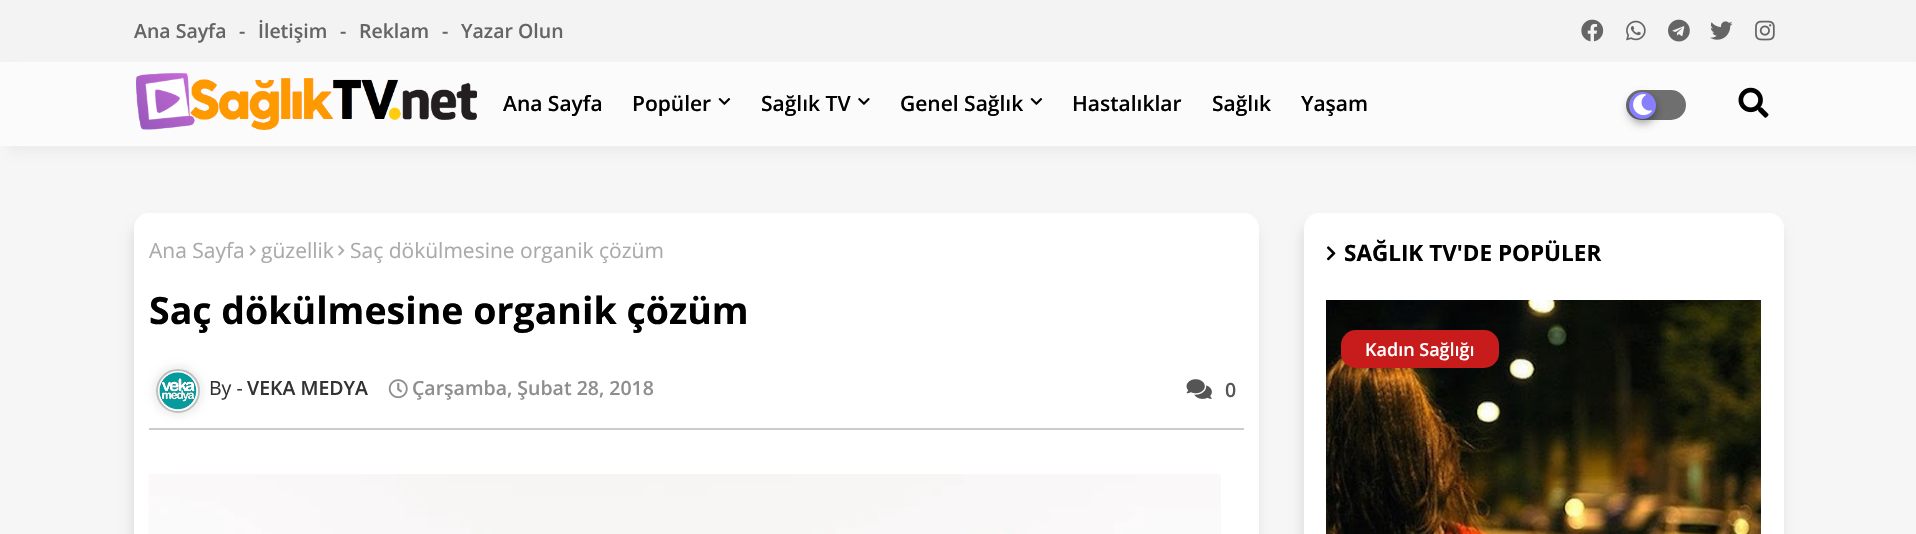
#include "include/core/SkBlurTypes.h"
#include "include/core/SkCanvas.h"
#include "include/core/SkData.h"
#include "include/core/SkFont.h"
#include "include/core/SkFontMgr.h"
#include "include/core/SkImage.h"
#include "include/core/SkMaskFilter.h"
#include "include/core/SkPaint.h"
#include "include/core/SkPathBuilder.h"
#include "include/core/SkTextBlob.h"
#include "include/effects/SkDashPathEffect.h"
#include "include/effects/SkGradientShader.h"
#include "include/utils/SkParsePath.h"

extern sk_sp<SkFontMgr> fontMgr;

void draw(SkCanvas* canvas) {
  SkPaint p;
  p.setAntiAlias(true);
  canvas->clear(SkColorSetRGB(246, 246, 246));
  p.setColor(SkColorSetRGB(243, 243, 243));
  canvas->drawRect(SkRect::MakeLTRB(0, 0, 1916, 62), p);
  canvas->drawImageRect(SkImages::DeferredFromEncodedData(SkData::MakeFromFileName("images/1.png")), SkRect::MakeLTRB(1581, 19, 1604, 42), SkSamplingOptions());
  canvas->drawImageRect(SkImages::DeferredFromEncodedData(SkData::MakeFromFileName("images/2.png")), SkRect::MakeLTRB(1626, 20, 1646, 41), SkSamplingOptions());
  canvas->drawImageRect(SkImages::DeferredFromEncodedData(SkData::MakeFromFileName("images/3.png")), SkRect::MakeLTRB(1668, 19, 1690, 42), SkSamplingOptions());
  canvas->drawImageRect(SkImages::DeferredFromEncodedData(SkData::MakeFromFileName("images/4.png")), SkRect::MakeLTRB(1710, 21, 1733, 40), SkSamplingOptions());
  canvas->drawImageRect(SkImages::DeferredFromEncodedData(SkData::MakeFromFileName("images/5.png")), SkRect::MakeLTRB(1755, 20, 1775, 41), SkSamplingOptions());
  p.setColor(SkColorSetARGB(122, 224, 223, 223));
  p.setMaskFilter(SkMaskFilter::MakeBlur(kNormal_SkBlurStyle, 6));
  canvas->drawRect(SkRect::MakeLTRB(8, 69, 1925, 153), p);
  p.setMaskFilter(nullptr);
  p.setColor(SkColorSetRGB(251, 251, 251));
  canvas->drawRect(SkRect::MakeLTRB(0, 62, 1916, 146), p);
  canvas->drawImageRect(SkImages::DeferredFromEncodedData(SkData::MakeFromFileName("images/6.png")), SkRect::MakeLTRB(136, 73, 477, 130), SkSamplingOptions());
  canvas->drawImageRect(SkImages::DeferredFromEncodedData(SkData::MakeFromFileName("images/7.png")), SkRect::MakeLTRB(718, 98, 731, 105), SkSamplingOptions());
  canvas->drawImageRect(SkImages::DeferredFromEncodedData(SkData::MakeFromFileName("images/8.png")), SkRect::MakeLTRB(858, 98, 870, 105), SkSamplingOptions());
  canvas->drawImageRect(SkImages::DeferredFromEncodedData(SkData::MakeFromFileName("images/7.png")), SkRect::MakeLTRB(1030, 98, 1043, 105), SkSamplingOptions());
  p.setColor(SkColorSetRGB(111, 111, 111));
  canvas->drawRoundRect(SkRect::MakeLTRB(1626, 90, 1686, 120), 15, 15, p);
  p.setColor(SkColorSetARGB(59, 0, 0, 0));
  p.setMaskFilter(SkMaskFilter::MakeBlur(kNormal_SkBlurStyle, 4.5f));
  canvas->drawRoundRect(SkRect::MakeLTRB(1629, 96, 1656, 123), 13.5f, 13.5f, p);
  p.setMaskFilter(nullptr);
  p.setColor(SkColorSetARGB(41, 0, 0, 0));
  p.setMaskFilter(SkMaskFilter::MakeBlur(kNormal_SkBlurStyle, 4.5f));
  canvas->drawRoundRect(SkRect::MakeLTRB(1629, 96, 1656, 123), 13.5f, 13.5f, p);
  p.setMaskFilter(nullptr);
  p.setColor(SkColorSetRGB(136, 127, 255));
  canvas->drawCircle(1642.5f, 105.5f, 13.5f, p);
  canvas->drawImageRect(SkImages::DeferredFromEncodedData(SkData::MakeFromFileName("images/9.png")), SkRect::MakeLTRB(1633, 94, 1652, 116), SkSamplingOptions());
  canvas->drawImageRect(SkImages::DeferredFromEncodedData(SkData::MakeFromFileName("images/10.png")), SkRect::MakeLTRB(1738, 87, 1769, 118), SkSamplingOptions());
  p.setColor(SkColorSetARGB(26, 0, 0, 0));
  p.setMaskFilter(SkMaskFilter::MakeBlur(kNormal_SkBlurStyle, 6));
  canvas->drawRoundRect(SkRect::MakeLTRB(132, 224, 1257, 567), 15, 15, p);
  p.setMaskFilter(nullptr);
  p.setColor(SK_ColorWHITE);
  canvas->drawRoundRect(SkRect::MakeLTRB(134, 213, 1259, 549), 15, 15, p);
  canvas->drawImageRect(SkImages::DeferredFromEncodedData(SkData::MakeFromFileName("images/11.png")), SkRect::MakeLTRB(249, 245, 256, 256), SkSamplingOptions());
  canvas->drawImageRect(SkImages::DeferredFromEncodedData(SkData::MakeFromFileName("images/12.png")), SkRect::MakeLTRB(338, 245, 345, 256), SkSamplingOptions());
  p.setColor(SkColorSetRGB(204, 204, 204));
  canvas->drawRect(SkRect::MakeLTRB(149, 428, 1244, 430), p);
  canvas->save();
  canvas->clipPath(SkPathBuilder(SkPathFillType::kEvenOdd).moveTo(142, 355).lineTo(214, 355).lineTo(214, 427).lineTo(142, 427).close().moveTo(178, 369).cubicTo(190, 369, 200, 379, 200, 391).cubicTo(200, 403, 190, 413, 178, 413).cubicTo(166, 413, 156, 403, 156, 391).cubicTo(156, 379, 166, 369, 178, 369).close().detach(), true);
  p.setColor(SkColorSetARGB(15, 0, 0, 0));
  p.setMaskFilter(SkMaskFilter::MakeBlur(kNormal_SkBlurStyle, 3));
  canvas->drawRoundRect(SkRect::MakeLTRB(152, 365, 204, 417), 26, 26, p);
  p.setMaskFilter(nullptr);
  canvas->restore();
  p.setStyle(SkPaint::kStroke_Style);
  p.setStrokeWidth(2);
  p.setColor(SkColorSetARGB(64, 0, 0, 0));
  canvas->drawCircle(178, 391, 21, p);
  canvas->drawImageRect(SkImages::DeferredFromEncodedData(SkData::MakeFromFileName("images/13.png")), SkRect::MakeLTRB(159, 372, 197, 410), SkSamplingOptions());
  canvas->drawImageRect(SkImages::DeferredFromEncodedData(SkData::MakeFromFileName("images/14.png")), SkRect::MakeLTRB(388, 379, 408, 399), SkSamplingOptions());
  canvas->drawImageRect(SkImages::DeferredFromEncodedData(SkData::MakeFromFileName("images/15.png")), SkRect::MakeLTRB(1186, 379, 1212, 399), SkSamplingOptions());
  canvas->drawImageRect(SkImages::DeferredFromEncodedData(SkData::MakeFromFileName("images/16.png")), SkRect::MakeLTRB(148, 474, 1221, 534), SkSamplingOptions());
  p.setStyle(SkPaint::kFill_Style);
  p.setColor(SkColorSetARGB(26, 0, 0, 0));
  p.setMaskFilter(SkMaskFilter::MakeBlur(kNormal_SkBlurStyle, 6));
  canvas->drawRoundRect(SkRect::MakeLTRB(1302, 224, 1782, 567), 15, 15, p);
  p.setMaskFilter(nullptr);
  p.setColor(SK_ColorWHITE);
  canvas->drawRoundRect(SkRect::MakeLTRB(1304, 213, 1784, 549), 15, 15, p);
  canvas->drawImageRect(SkImages::DeferredFromEncodedData(SkData::MakeFromFileName("images/17.png")), SkRect::MakeLTRB(1326, 246, 1336, 261), SkSamplingOptions());
  canvas->drawImageRect(SkImages::DeferredFromEncodedData(SkData::MakeFromFileName("images/18.png")), SkRect::MakeLTRB(1326, 300, 1761, 534), SkSamplingOptions());
  p.setColor(SkColorSetRGB(199, 28, 27));
  canvas->drawRoundRect(SkRect::MakeLTRB(1341, 330, 1499, 368), 15, 15, p);
  SkFont font1(fontMgr->matchFamilyStyle("Open Sans", SkFontStyle(600, SkFontStyle::kNormal_Width, SkFontStyle::kUpright_Slant)), 19.5f);
  font1.setSubpixel(true);
  p.setColor(SkColorSetRGB(101, 101, 101));
  canvas->drawString("Ana Sayfa", 134, 38, font1, p);
  canvas->drawString("-", 239, 38, font1, p);
  canvas->drawString("İletişim", 258, 38, font1, p);
  canvas->drawString("-", 340, 38, font1, p);
  canvas->drawString("Reklam", 359, 38, font1, p);
  canvas->drawString("-", 442, 38, font1, p);
  canvas->drawString("Yazar Olun", 461, 38, font1, p);
  SkFont font2(fontMgr->matchFamilyStyle("Open Sans", SkFontStyle(600, SkFontStyle::kNormal_Width, SkFontStyle::kUpright_Slant)), 21);
  font2.setSubpixel(true);
  p.setColor(SK_ColorBLACK);
  canvas->drawString("Ana Sayfa", 503, 111, font2, p);
  canvas->drawString("Popüler", 632, 111, font2, p);
  canvas->drawString("Sağlık TV", 761, 111, font2, p);
  canvas->drawString("Genel Sağlık", 900, 111, font2, p);
  canvas->drawString("Hastalıklar", 1072, 111, font2, p);
  canvas->drawString("Sağlık", 1212, 111, font2, p);
  canvas->drawString("Yaşam", 1301, 111, font2, p);
  SkFont font3(fontMgr->matchFamilyStyle("Open Sans", SkFontStyle::Normal()), 21);
  font3.setSubpixel(true);
  p.setColor(SkColorSetRGB(170, 170, 170));
  canvas->drawString("Ana Sayfa", 149, 258, font3, p);
  canvas->drawString("güzellik", 261, 258, font3, p);
  canvas->drawString("Saç dökülmesine organik çözüm", 350, 258, font3, p);
  SkFont font4(fontMgr->matchFamilyStyle("Open Sans", SkFontStyle::Bold()), 37.5f);
  font4.setSubpixel(true);
  p.setColor(SK_ColorBLACK);
  canvas->drawString("Saç dökülmesine organik çözüm", 149, 324, font4, p);
  SkFont font5(fontMgr->matchFamilyStyle("Open Sans", SkFontStyle::Normal()), 19.5f);
  font5.setSubpixel(true);
  p.setColor(SkColorSetRGB(51, 51, 51));
  canvas->drawString("By -", 209, 395, font5, p);
  canvas->drawString("VEKA MEDYA", 247, 395, font1, p);
  p.setColor(SkColorSetRGB(142, 142, 142));
  canvas->drawString("Çarşamba, Şubat 28, 2018", 412, 395, font1, p);
  p.setColor(SkColorSetRGB(85, 85, 85));
  canvas->drawString("0", 1225, 397, font1, p);
  SkFont font6(fontMgr->matchFamilyStyle("Open Sans", SkFontStyle::Bold()), 22.5f);
  font6.setSubpixel(true);
  p.setColor(SK_ColorBLACK);
  canvas->drawString("SAĞLIK TV'DE POPÜLER", 1344, 261, font6, p);
  SkFont font7(fontMgr->matchFamilyStyle("Open Sans", SkFontStyle(600, SkFontStyle::kNormal_Width, SkFontStyle::kUpright_Slant)), 18);
  font7.setSubpixel(true);
  p.setColor(SK_ColorWHITE);
  canvas->drawString("Kadın Sağlığı", 1365, 356, font7, p);
}
